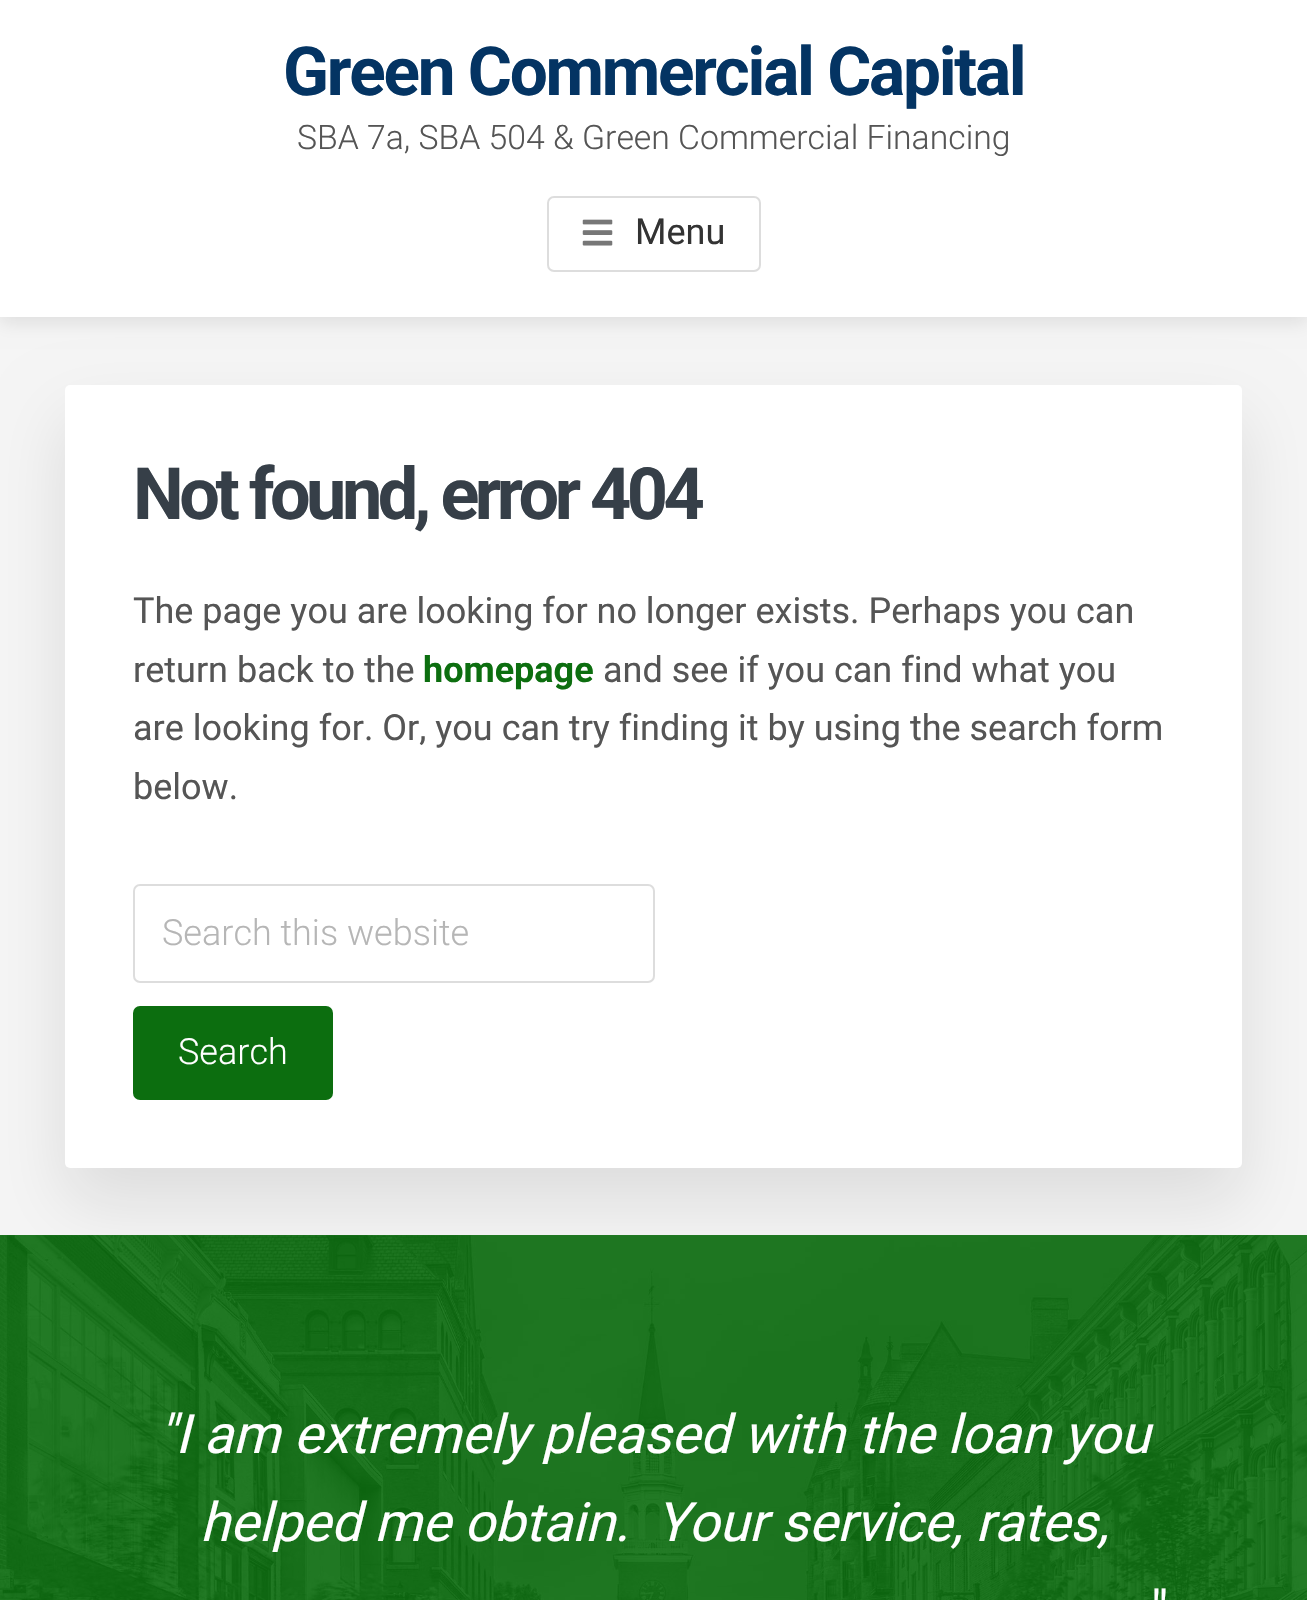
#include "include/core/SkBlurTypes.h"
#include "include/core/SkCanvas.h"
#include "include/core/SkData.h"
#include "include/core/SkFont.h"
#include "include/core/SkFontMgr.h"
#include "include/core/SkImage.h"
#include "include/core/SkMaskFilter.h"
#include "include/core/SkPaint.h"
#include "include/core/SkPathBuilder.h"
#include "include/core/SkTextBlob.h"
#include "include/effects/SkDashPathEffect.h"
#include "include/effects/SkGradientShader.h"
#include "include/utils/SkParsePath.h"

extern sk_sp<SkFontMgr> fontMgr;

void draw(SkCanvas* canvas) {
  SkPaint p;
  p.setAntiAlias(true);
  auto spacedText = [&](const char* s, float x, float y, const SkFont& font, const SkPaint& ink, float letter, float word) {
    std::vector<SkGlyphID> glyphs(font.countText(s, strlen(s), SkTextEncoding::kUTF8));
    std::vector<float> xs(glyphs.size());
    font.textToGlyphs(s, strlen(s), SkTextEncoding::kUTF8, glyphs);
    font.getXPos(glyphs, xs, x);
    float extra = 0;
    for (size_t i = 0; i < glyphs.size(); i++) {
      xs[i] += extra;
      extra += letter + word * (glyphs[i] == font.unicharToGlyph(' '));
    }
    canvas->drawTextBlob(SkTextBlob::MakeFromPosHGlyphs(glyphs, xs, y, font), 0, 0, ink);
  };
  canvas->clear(SkColorSetRGB(245, 245, 245));
  p.setColor(SkColorSetARGB(26, 0, 0, 0));
  p.setMaskFilter(SkMaskFilter::MakeBlur(kNormal_SkBlurStyle, 9));
  canvas->drawRect(SkRect::MakeLTRB(0, 5, 1307, 322), p);
  p.setMaskFilter(nullptr);
  p.setColor(SK_ColorWHITE);
  canvas->drawRect(SkRect::MakeLTRB(0, 0, 1307, 317), p);
  p.setStyle(SkPaint::kStroke_Style);
  p.setStrokeWidth(2);
  p.setColor(SkColorSetRGB(221, 221, 221));
  canvas->drawRoundRect(SkRect::MakeLTRB(548, 197, 760, 271), 6, 6, p);
  canvas->drawImageRect(SkImages::DeferredFromEncodedData(SkData::MakeFromFileName("images/1.png")), SkRect::MakeLTRB(582, 219, 613, 246), SkSamplingOptions());
  p.setStyle(SkPaint::kFill_Style);
  p.setColor(SkColorSetARGB(26, 0, 0, 0));
  p.setMaskFilter(SkMaskFilter::MakeBlur(kNormal_SkBlurStyle, 34));
  canvas->drawRoundRect(SkRect::MakeLTRB(65, 419, 1242, 1202), 5, 5, p);
  p.setMaskFilter(nullptr);
  p.setColor(SK_ColorWHITE);
  canvas->drawRoundRect(SkRect::MakeLTRB(65, 385, 1242, 1168), 5, 5, p);
  p.setStyle(SkPaint::kStroke_Style);
  p.setColor(SkColorSetRGB(221, 221, 221));
  canvas->drawRoundRect(SkRect::MakeLTRB(134, 885, 654, 982), 6, 6, p);
  p.setStyle(SkPaint::kFill_Style);
  p.setColor(SkColorSetRGB(12, 110, 15));
  canvas->drawRoundRect(SkRect::MakeLTRB(133, 1006, 333, 1100), 7, 7, p);
  canvas->drawImageRect(SkImages::DeferredFromEncodedData(SkData::MakeFromFileName("images/2.png")), SkRect::MakeLTRB(0, 1235, 1307, 1600), SkSamplingOptions());
  p.setColor(SkColorSetARGB(230, 12, 110, 15));
  canvas->drawRect(SkRect::MakeLTRB(0, 1235, 1307, 1600), p);
  SkFont font1(fontMgr->matchFamilyStyle("Roboto", SkFontStyle::Bold()), 67.5f);
  font1.setSubpixel(true);
  p.setColor(SkColorSetRGB(4, 52, 99));
  spacedText("Green Commercial Capital", 283, 95, font1, p, -2.25f, 0);
  SkFont font2(fontMgr->matchFamilyStyle("Roboto", SkFontStyle(300, SkFontStyle::kNormal_Width, SkFontStyle::kUpright_Slant)), 33.75f);
  font2.setSubpixel(true);
  p.setColor(SkColorSetRGB(85, 85, 85));
  canvas->drawString("SBA 7a, SBA 504 & Green Commercial Financing", 297, 149, font2, p);
  SkFont font3(fontMgr->matchFamilyStyle("Roboto", SkFontStyle::Normal()), 36);
  font3.setSubpixel(true);
  p.setColor(SkColorSetRGB(51, 51, 51));
  canvas->drawString("Menu", 635, 244, font3, p);
  SkFont font4(fontMgr->matchFamilyStyle("Roboto", SkFontStyle::Bold()), 72);
  font4.setSubpixel(true);
  p.setColor(SkColorSetRGB(54, 63, 72));
  spacedText("Not found, error 404", 133, 519, font4, p, -4.5f, 0);
  p.setColor(SkColorSetRGB(85, 85, 85));
  canvas->drawString("The page you are looking for no longer exists. Perhaps you can", 133, 623, font3, p);
  canvas->drawString("return back to the", 133, 682, font3, p);
  SkFont font5(fontMgr->matchFamilyStyle("Roboto", SkFontStyle::Bold()), 36);
  font5.setSubpixel(true);
  p.setColor(SkColorSetRGB(12, 110, 15));
  canvas->drawString("homepage", 423, 682, font5, p);
  p.setColor(SkColorSetRGB(85, 85, 85));
  canvas->drawString("and see if you can find what you", 603, 682, font3, p);
  canvas->drawString("are looking for. Or, you can try finding it by using the search form", 133, 740, font3, p);
  canvas->drawString("below.", 133, 799, font3, p);
  SkFont font6(fontMgr->matchFamilyStyle("Roboto", SkFontStyle(300, SkFontStyle::kNormal_Width, SkFontStyle::kUpright_Slant)), 36);
  font6.setSubpixel(true);
  p.setColor(SkColorSetRGB(182, 182, 182));
  canvas->drawString("Search this website", 162, 945, font6, p);
  p.setColor(SK_ColorWHITE);
  canvas->drawString("Search", 178, 1064, font6, p);
  SkFont font7(fontMgr->matchFamilyStyle("Roboto", SkFontStyle::Italic()), 54);
  font7.setSubpixel(true);
  canvas->drawString("\"I am extremely pleased with the loan you", 158, 1453, font7, p);
  canvas->drawString("helped me obtain.  Your service, rates,", 200, 1541, font7, p);
  SkFont font8(fontMgr->matchFamilyStyle("Roboto", SkFontStyle::Normal()), 54);
  font8.setSubpixel(true);
  canvas->drawString("\"", 1151, 1629, font8, p);
}
